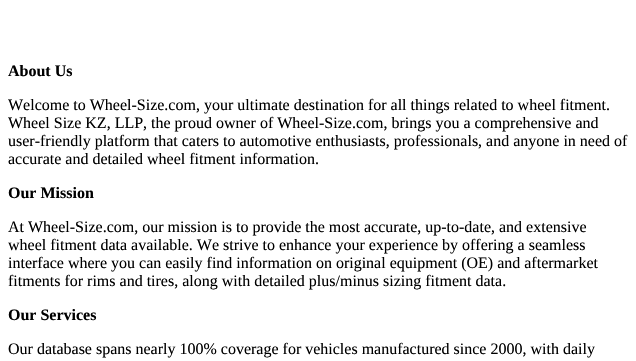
#include "include/core/SkBlurTypes.h"
#include "include/core/SkCanvas.h"
#include "include/core/SkData.h"
#include "include/core/SkFont.h"
#include "include/core/SkFontMgr.h"
#include "include/core/SkImage.h"
#include "include/core/SkMaskFilter.h"
#include "include/core/SkPaint.h"
#include "include/core/SkPathBuilder.h"
#include "include/core/SkTextBlob.h"
#include "include/effects/SkDashPathEffect.h"
#include "include/effects/SkGradientShader.h"
#include "include/utils/SkParsePath.h"

extern sk_sp<SkFontMgr> fontMgr;

void draw(SkCanvas* canvas) {
  SkPaint p;
  p.setAntiAlias(true);
  canvas->clear(SK_ColorWHITE);
  SkFont font1(fontMgr->matchFamilyStyle("Liberation Serif", SkFontStyle::Bold()), 16);
  font1.setSubpixel(true);
  p.setColor(SK_ColorBLACK);
  canvas->drawString("About Us", 8, 76, font1, p);
  SkFont font2(fontMgr->matchFamilyStyle("Liberation Serif", SkFontStyle::Normal()), 16);
  font2.setSubpixel(true);
  canvas->drawString("Welcome to Wheel-Size.com, your ultimate destination for all things related to wheel fitment.", 8, 110, font2, p);
  canvas->drawString("Wheel Size KZ, LLP, the proud owner of Wheel-Size.com, brings you a comprehensive and", 8, 128, font2, p);
  canvas->drawString("user-friendly platform that caters to automotive enthusiasts, professionals, and anyone in need of", 8, 146, font2, p);
  canvas->drawString("accurate and detailed wheel fitment information.", 8, 164, font2, p);
  canvas->drawString("Our Mission", 8, 198, font1, p);
  canvas->drawString("At Wheel-Size.com, our mission is to provide the most accurate, up-to-date, and extensive", 8, 232, font2, p);
  canvas->drawString("wheel fitment data available. We strive to enhance your experience by offering a seamless", 8, 250, font2, p);
  canvas->drawString("interface where you can easily find information on original equipment (OE) and aftermarket", 8, 268, font2, p);
  canvas->drawString("fitments for rims and tires, along with detailed plus/minus sizing fitment data.", 8, 286, font2, p);
  canvas->drawString("Our Services", 8, 320, font1, p);
  canvas->drawString("Our database spans nearly 100% coverage for vehicles manufactured since 2000, with daily", 8, 354, font2, p);
}
